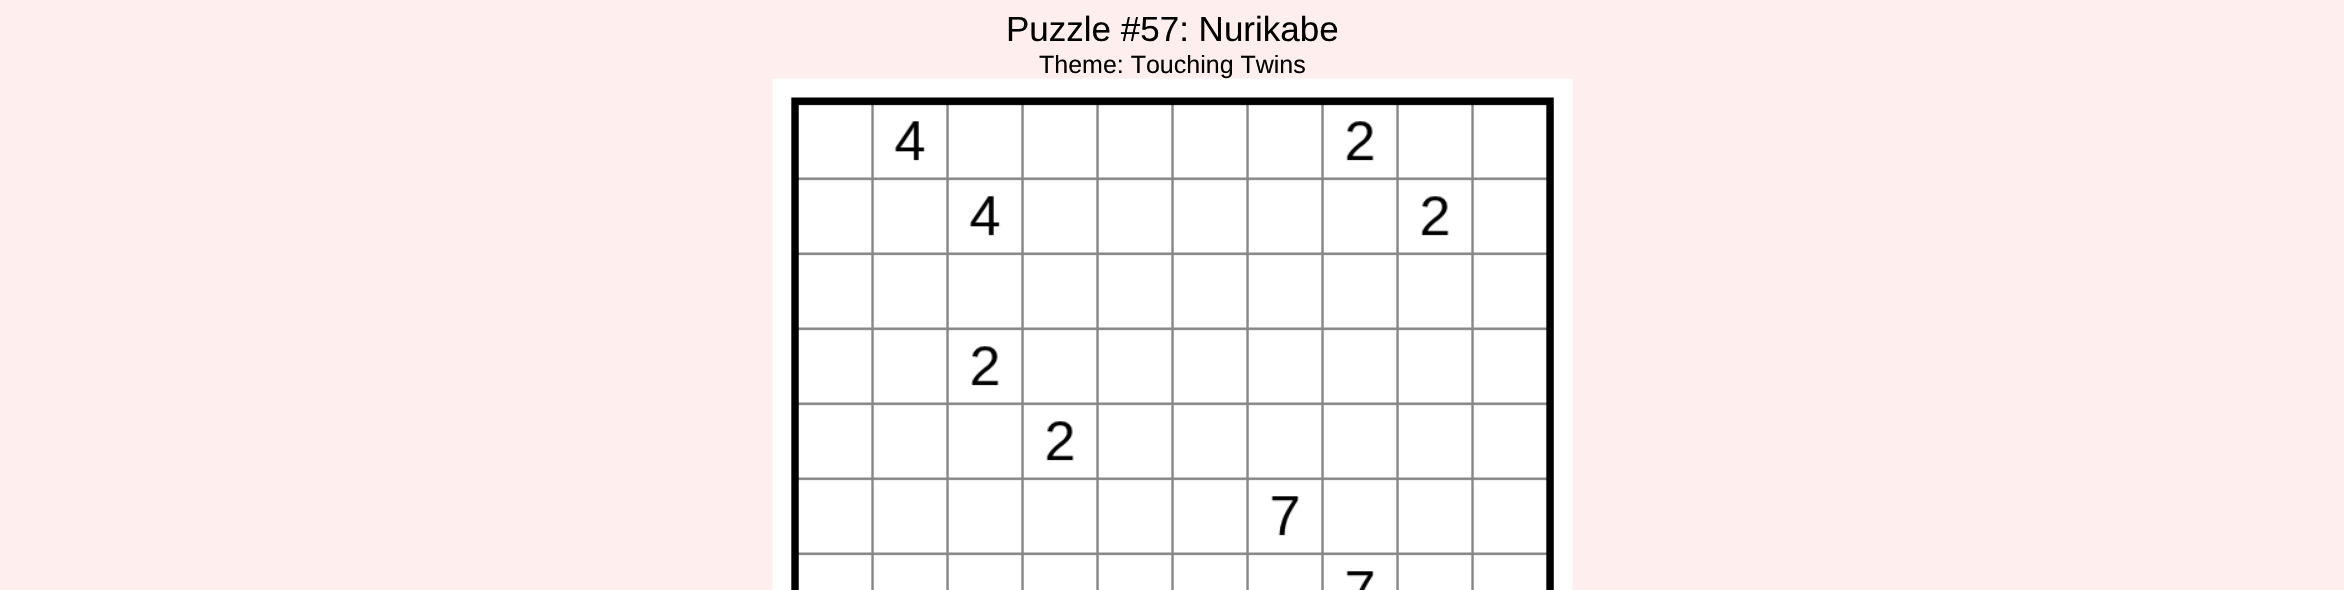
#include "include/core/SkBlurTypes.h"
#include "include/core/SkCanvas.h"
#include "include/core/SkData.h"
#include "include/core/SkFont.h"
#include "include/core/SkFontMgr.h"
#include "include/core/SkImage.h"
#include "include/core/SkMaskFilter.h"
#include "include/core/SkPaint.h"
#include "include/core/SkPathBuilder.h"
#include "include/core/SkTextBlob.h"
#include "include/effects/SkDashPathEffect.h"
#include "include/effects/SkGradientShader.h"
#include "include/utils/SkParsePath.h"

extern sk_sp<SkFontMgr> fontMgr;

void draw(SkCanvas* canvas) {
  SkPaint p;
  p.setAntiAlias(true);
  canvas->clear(SkColorSetRGB(255, 238, 238));
  SkFont font1(fontMgr->matchFamilyStyle("Liberation Sans", SkFontStyle::Normal()), 35);
  font1.setSubpixel(true);
  p.setColor(SK_ColorBLACK);
  canvas->drawString("Puzzle #57: Nurikabe", 1006, 41, font1, p);
  SkFont font2(fontMgr->matchFamilyStyle("Liberation Sans", SkFontStyle::Normal()), 25);
  font2.setSubpixel(true);
  canvas->drawString("Theme: Touching Twins", 1039, 73, font2, p);
  canvas->drawImageRect(SkImages::DeferredFromEncodedData(SkData::MakeFromFileName("images/1.png")), SkRect::MakeLTRB(772, 78, 1573, 590), SkSamplingOptions());
}
